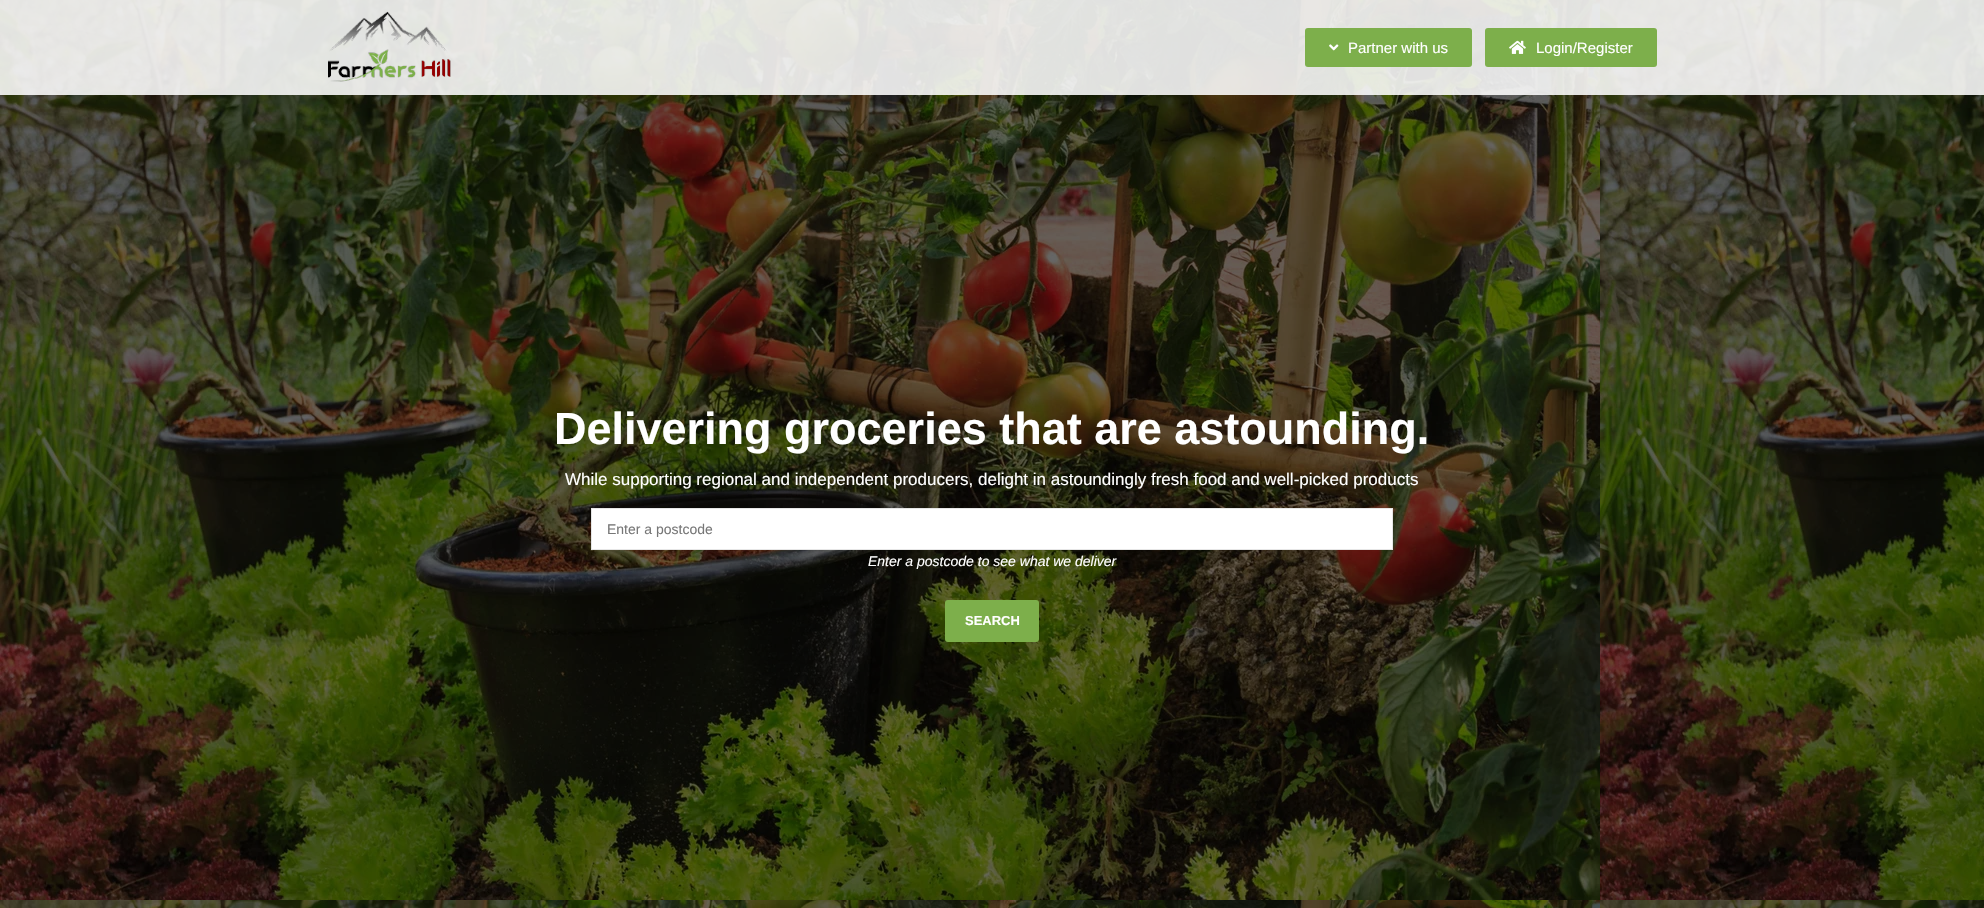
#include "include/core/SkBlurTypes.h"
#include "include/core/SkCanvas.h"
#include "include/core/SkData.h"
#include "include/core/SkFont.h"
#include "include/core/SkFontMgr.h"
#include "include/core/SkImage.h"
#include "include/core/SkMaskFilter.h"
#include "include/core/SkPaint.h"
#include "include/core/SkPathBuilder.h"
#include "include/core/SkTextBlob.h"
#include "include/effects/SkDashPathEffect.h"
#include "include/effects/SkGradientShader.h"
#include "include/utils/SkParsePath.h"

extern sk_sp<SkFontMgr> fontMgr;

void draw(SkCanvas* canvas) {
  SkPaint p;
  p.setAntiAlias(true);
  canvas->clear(SK_ColorWHITE);
  canvas->drawImageRect(SkImages::DeferredFromEncodedData(SkData::MakeFromFileName("images/1.png")), SkRect::MakeLTRB(0, 0, 1984, 908), SkSamplingOptions());
  p.setColor(SkColorSetARGB(222, 255, 255, 255));
  canvas->drawRect(SkRect::MakeLTRB(0, 0, 1984, 95), p);
  canvas->drawImageRect(SkImages::DeferredFromEncodedData(SkData::MakeFromFileName("images/2.png")), SkRect::MakeLTRB(328, 11, 451, 82), SkSamplingOptions());
  p.setColor(SkColorSetRGB(125, 175, 75));
  canvas->drawRoundRect(SkRect::MakeLTRB(1305, 28, 1472, 67), 3, 3, p);
  canvas->drawImageRect(SkImages::DeferredFromEncodedData(SkData::MakeFromFileName("images/3.png")), SkRect::MakeLTRB(1329, 44, 1339, 51), SkSamplingOptions());
  canvas->drawRoundRect(SkRect::MakeLTRB(1485, 28, 1657, 67), 3, 3, p);
  canvas->drawImageRect(SkImages::DeferredFromEncodedData(SkData::MakeFromFileName("images/4.png")), SkRect::MakeLTRB(1509, 40, 1526, 54), SkSamplingOptions());
  p.setColor(SK_ColorWHITE);
  canvas->drawRect(SkRect::MakeLTRB(591.5f, 508.5f, 1392.5f, 549.5f), p);
  p.setStyle(SkPaint::kStroke_Style);
  p.setStrokeWidth(1);
  p.setColor(SkColorSetRGB(230, 230, 230));
  canvas->drawRect(SkRect::MakeLTRB(591.5f, 508.5f, 1392.5f, 549.5f), p);
  p.setStyle(SkPaint::kFill_Style);
  p.setColor(SkColorSetRGB(125, 175, 75));
  canvas->drawRoundRect(SkRect::MakeLTRB(945, 600, 1039, 642), 3, 3, p);
  SkFont font1(fontMgr->matchFamilyStyle("Liberation Sans", SkFontStyle::Normal()), 15);
  font1.setSubpixel(true);
  p.setColor(SK_ColorWHITE);
  canvas->drawString("Partner with us", 1348, 53, font1, p);
  canvas->drawString("Login/Register", 1536, 53, font1, p);
  SkFont font2(fontMgr->matchFamilyStyle("Liberation Sans", SkFontStyle::Bold()), 45);
  font2.setSubpixel(true);
  canvas->drawString("Delivering groceries that are astounding.", 554, 444, font2, p);
  SkFont font3(fontMgr->matchFamilyStyle("Liberation Sans", SkFontStyle::Normal()), 17);
  font3.setSubpixel(true);
  canvas->drawString("While supporting regional and independent producers, delight in astoundingly fresh food and well-picked products", 565, 485, font3, p);
  SkFont font4(fontMgr->matchFamilyStyle("Liberation Sans", SkFontStyle::Normal()), 14);
  font4.setSubpixel(true);
  p.setColor(SkColorSetRGB(119, 119, 119));
  canvas->drawString("Enter a postcode", 607, 534, font4, p);
  SkFont font5(fontMgr->matchFamilyStyle("Liberation Sans", SkFontStyle::Italic()), 14);
  font5.setSubpixel(true);
  p.setColor(SK_ColorWHITE);
  canvas->drawString("Enter a postcode to see what we deliver", 868, 566, font5, p);
  SkFont font6(fontMgr->matchFamilyStyle("Liberation Sans", SkFontStyle::Bold()), 13);
  font6.setSubpixel(true);
  canvas->drawString("SEARCH", 965, 625, font6, p);
}
